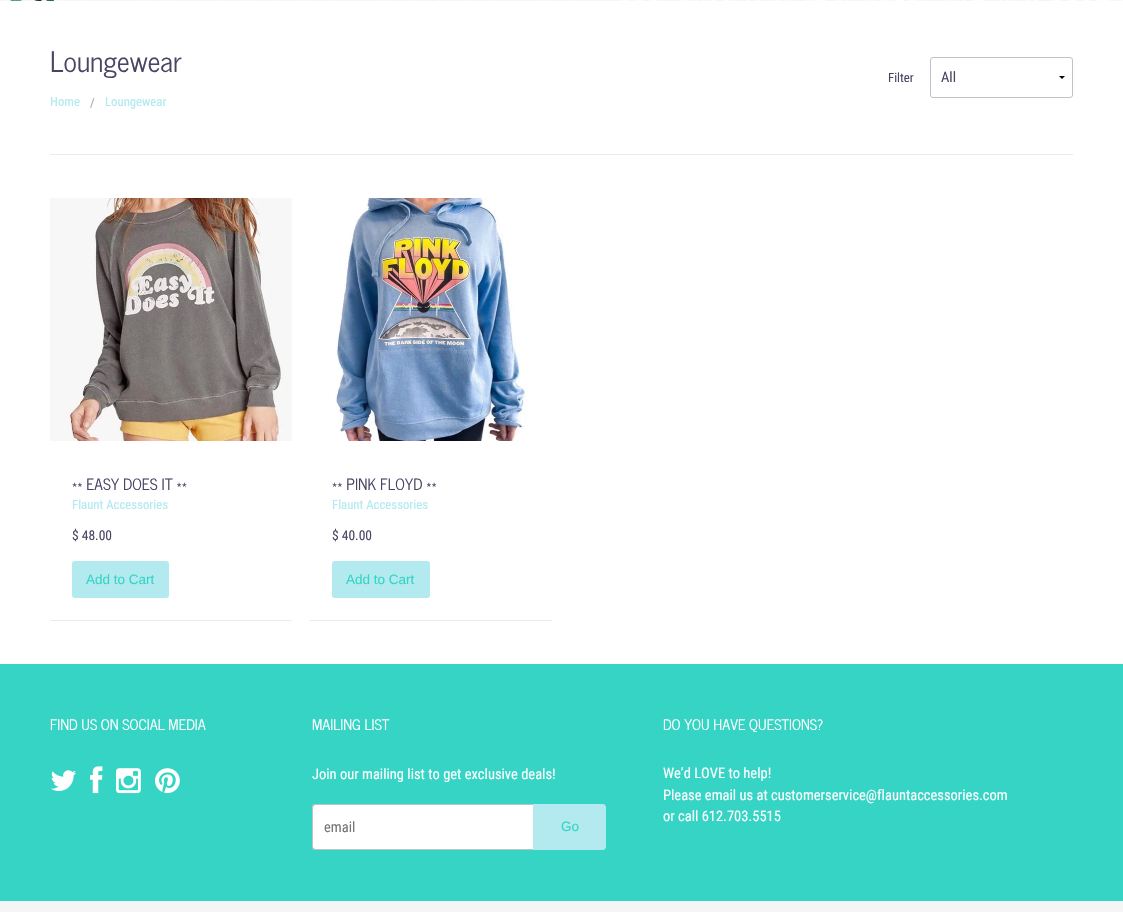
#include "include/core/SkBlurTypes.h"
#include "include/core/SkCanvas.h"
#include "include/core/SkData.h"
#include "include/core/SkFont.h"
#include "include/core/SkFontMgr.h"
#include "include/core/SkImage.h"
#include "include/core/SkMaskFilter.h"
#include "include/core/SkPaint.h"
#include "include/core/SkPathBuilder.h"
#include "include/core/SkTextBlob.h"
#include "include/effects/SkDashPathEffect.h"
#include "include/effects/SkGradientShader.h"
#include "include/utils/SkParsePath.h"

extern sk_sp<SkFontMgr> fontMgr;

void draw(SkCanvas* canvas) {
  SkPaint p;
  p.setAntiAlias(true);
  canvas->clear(SK_ColorWHITE);
  canvas->drawImageRect(SkImages::DeferredFromEncodedData(SkData::MakeFromFileName("images/1.png")), SkRect::MakeLTRB(0, 0, 1123, 912), SkSamplingOptions());
  p.setColor(SK_ColorWHITE);
  canvas->drawRect(SkRect::MakeLTRB(0, 1, 1123, 664), p);
  p.setColor(SkColorSetRGB(235, 235, 235));
  canvas->drawRect(SkRect::MakeLTRB(50, 154, 1073, 155), p);
  p.setColor(SK_ColorBLACK);
  canvas->drawPath(SkPathBuilder().moveTo(1065, 76).lineTo(1062, 79).lineTo(1059, 76).close().detach(), p);
  p.setStyle(SkPaint::kStroke_Style);
  p.setStrokeWidth(1);
  p.setColor(SkColorSetRGB(188, 195, 202));
  canvas->drawRoundRect(SkRect::MakeLTRB(930.5f, 57.5f, 1072.5f, 97.5f), 2.5f, 2.5f, p);
  canvas->drawImageRect(SkImages::DeferredFromEncodedData(SkData::MakeFromFileName("images/2.png")), SkRect::MakeLTRB(50, 198, 292, 441), SkSamplingOptions());
  p.setStyle(SkPaint::kFill_Style);
  p.setColor(SkColorSetRGB(235, 235, 235));
  canvas->drawRect(SkRect::MakeLTRB(50, 620, 292, 621), p);
  p.setColor(SkColorSetRGB(178, 234, 240));
  canvas->drawRoundRect(SkRect::MakeLTRB(72, 561, 169, 598), 3, 3, p);
  canvas->drawImageRect(SkImages::DeferredFromEncodedData(SkData::MakeFromFileName("images/3.png")), SkRect::MakeLTRB(335, 198, 527, 441), SkSamplingOptions());
  p.setColor(SkColorSetRGB(235, 235, 235));
  canvas->drawRect(SkRect::MakeLTRB(310, 620, 552, 621), p);
  p.setColor(SkColorSetRGB(178, 234, 240));
  canvas->drawRoundRect(SkRect::MakeLTRB(332, 561, 430, 598), 3, 3, p);
  p.setColor(SkColorSetRGB(53, 212, 197));
  canvas->drawRect(SkRect::MakeLTRB(0, 664, 1123, 901), p);
  canvas->drawImageRect(SkImages::DeferredFromEncodedData(SkData::MakeFromFileName("images/4.png")), SkRect::MakeLTRB(51, 770, 76, 791), SkSamplingOptions());
  canvas->drawImageRect(SkImages::DeferredFromEncodedData(SkData::MakeFromFileName("images/5.png")), SkRect::MakeLTRB(90, 766, 103, 794), SkSamplingOptions());
  canvas->drawImageRect(SkImages::DeferredFromEncodedData(SkData::MakeFromFileName("images/6.png")), SkRect::MakeLTRB(116, 768, 141, 794), SkSamplingOptions());
  canvas->drawImageRect(SkImages::DeferredFromEncodedData(SkData::MakeFromFileName("images/7.png")), SkRect::MakeLTRB(155, 768, 180, 794), SkSamplingOptions());
  p.setColor(SK_ColorWHITE);
  canvas->drawPath(SkPathBuilder().moveTo(315, 805).lineTo(533, 805).lineTo(533, 849).lineTo(315, 849).cubicTo(314, 849, 313, 848, 313, 847).lineTo(313, 807).cubicTo(313, 806, 314, 805, 315, 805).close().detach(), p);
  p.setColor(SkColorSetRGB(188, 195, 202));
  canvas->drawPath(SkPathBuilder(SkPathFillType::kEvenOdd).moveTo(315, 804).lineTo(533, 804).lineTo(533, 850).lineTo(315, 850).cubicTo(313, 850, 312, 849, 312, 847).lineTo(312, 807).cubicTo(312, 805, 313, 804, 315, 804).close().moveTo(315, 805).lineTo(533, 805).lineTo(533, 849).lineTo(315, 849).cubicTo(314, 849, 313, 848, 313, 847).lineTo(313, 807).cubicTo(313, 806, 314, 805, 315, 805).close().detach(), p);
  p.setColor(SkColorSetRGB(178, 234, 240));
  canvas->drawPath(SkPathBuilder().moveTo(533, 804).lineTo(603, 804).cubicTo(604.5f, 804, 606, 805.5f, 606, 807).lineTo(606, 847).cubicTo(606, 848.5f, 604.5f, 850, 603, 850).lineTo(533, 850).close().detach(), p);
  SkFont font1(fontMgr->matchFamilyStyle("News Cycle", SkFontStyle::Normal()), 28);
  font1.setSubpixel(true);
  p.setColor(SkColorSetRGB(72, 69, 99));
  canvas->drawString("Loungewear", 50, 72, font1, p);
  SkFont font2(fontMgr->matchFamilyStyle("Roboto Condensed", SkFontStyle::Normal()), 12.75f);
  font2.setSubpixel(true);
  p.setColor(SkColorSetRGB(178, 234, 240));
  canvas->drawString("Home", 50, 106, font2, p);
  p.setColor(SkColorSetRGB(170, 170, 170));
  canvas->drawString("/", 90, 107, font2, p);
  p.setColor(SkColorSetRGB(178, 234, 240));
  canvas->drawString("Loungewear", 105, 106, font2, p);
  p.setColor(SkColorSetRGB(72, 69, 99));
  canvas->drawString("Filter", 888, 82, font2, p);
  SkFont font3(fontMgr->matchFamilyStyle("Roboto Condensed", SkFontStyle::Normal()), 14.5f);
  font3.setSubpixel(true);
  canvas->drawString("All", 941, 82, font3, p);
  SkFont font4(fontMgr->matchFamilyStyle("News Cycle", SkFontStyle::Normal()), 15.5f);
  font4.setSubpixel(true);
  canvas->drawString("** EASY DOES IT **", 72, 490, font4, p);
  p.setColor(SkColorSetRGB(178, 234, 240));
  canvas->drawString("Flaunt Accessories", 72, 509, font2, p);
  SkFont font5(fontMgr->matchFamilyStyle("Roboto Condensed", SkFontStyle::Normal()), 13.5f);
  font5.setSubpixel(true);
  p.setColor(SkColorSetRGB(72, 69, 99));
  canvas->drawString("$ 48.00", 72, 540, font5, p);
  SkFont font6(fontMgr->matchFamilyStyle("Liberation Sans", SkFontStyle::Normal()), 13.5f);
  font6.setSubpixel(true);
  p.setColor(SkColorSetRGB(53, 212, 197));
  canvas->drawString("Add to Cart", 86, 584, font6, p);
  p.setColor(SkColorSetRGB(72, 69, 99));
  canvas->drawString("** PINK FLOYD **", 332, 490, font4, p);
  p.setColor(SkColorSetRGB(178, 234, 240));
  canvas->drawString("Flaunt Accessories", 332, 509, font2, p);
  p.setColor(SkColorSetRGB(72, 69, 99));
  canvas->drawString("$ 40.00", 332, 540, font5, p);
  p.setColor(SkColorSetRGB(53, 212, 197));
  canvas->drawString("Add to Cart", 346, 584, font6, p);
  SkFont font7(fontMgr->matchFamilyStyle("News Cycle", SkFontStyle::Normal()), 14.5f);
  font7.setSubpixel(true);
  p.setColor(SK_ColorWHITE);
  canvas->drawString("FIND US ON SOCIAL MEDIA", 50, 730, font7, p);
  canvas->drawString("MAILING LIST", 312, 730, font7, p);
  canvas->drawString("Join our mailing list to get exclusive deals!", 312, 779, font3, p);
  p.setColor(SkColorSetRGB(117, 117, 117));
  canvas->drawString("email", 324, 832, font3, p);
  p.setColor(SkColorSetRGB(53, 212, 197));
  canvas->drawString("Go", 561, 831, font6, p);
  p.setColor(SK_ColorWHITE);
  canvas->drawString("DO YOU HAVE QUESTIONS?", 663, 730, font7, p);
  canvas->drawString("We’d LOVE to help!", 663, 778, font3, p);
  canvas->drawString("Please email us at customerservice@flauntaccessories.com", 663, 800, font3, p);
  canvas->drawString("or call 612.703.5515", 663, 821, font3, p);
}
